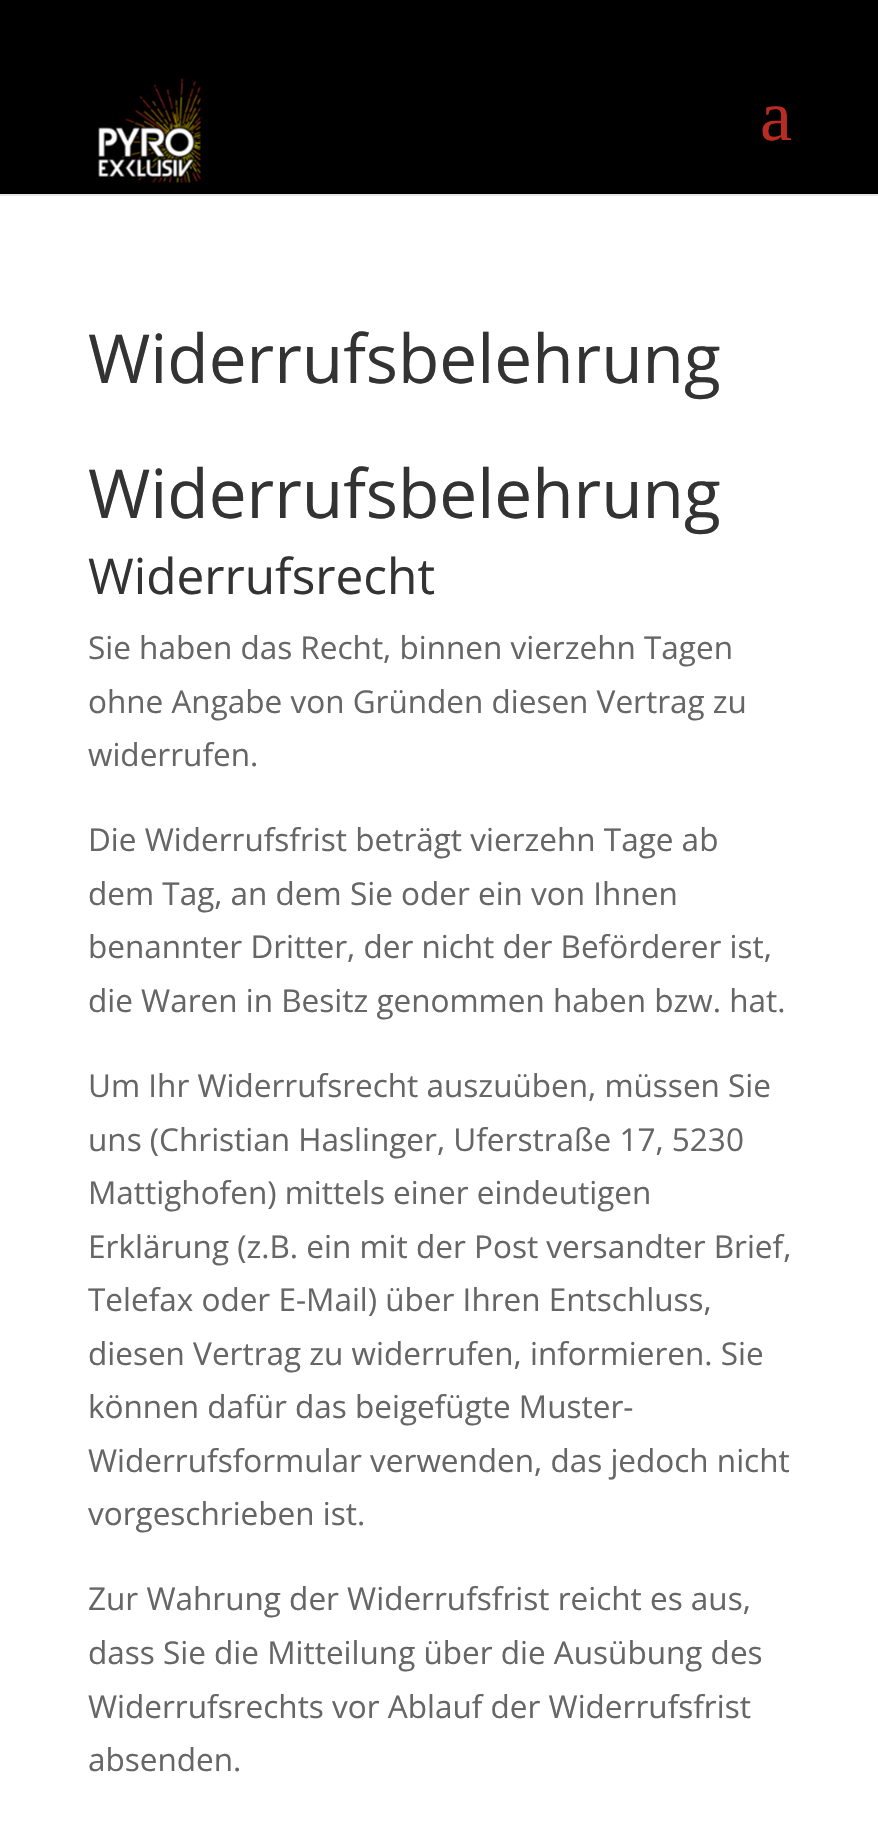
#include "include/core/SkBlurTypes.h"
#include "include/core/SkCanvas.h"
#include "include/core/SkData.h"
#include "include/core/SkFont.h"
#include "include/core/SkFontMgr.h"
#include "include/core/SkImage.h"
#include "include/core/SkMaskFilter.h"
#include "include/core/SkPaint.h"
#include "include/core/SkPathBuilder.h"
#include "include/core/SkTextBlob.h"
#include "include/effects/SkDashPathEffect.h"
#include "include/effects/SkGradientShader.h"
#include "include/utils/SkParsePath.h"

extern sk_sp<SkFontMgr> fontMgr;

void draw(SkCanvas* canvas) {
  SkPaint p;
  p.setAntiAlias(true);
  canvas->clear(SK_ColorWHITE);
  p.setColor(SkColorSetRGB(230, 230, 230));
  canvas->drawPath(SkPathBuilder().moveTo(0, 194).lineTo(0, 196).lineTo(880, 196).lineTo(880, 2).lineTo(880, 194).close().detach(), p);
  p.setColor(SK_ColorBLACK);
  canvas->drawRect(SkRect::MakeLTRB(0, 0, 878, 194), p);
  canvas->drawImageRect(SkImages::DeferredFromEncodedData(SkData::MakeFromFileName("images/1.png")), SkRect::MakeLTRB(98, 78, 201, 183), SkSamplingOptions());
  SkFont font1(fontMgr->matchFamilyStyle("Liberation Serif", SkFontStyle::Normal()), 72);
  font1.setSubpixel(true);
  p.setColor(SkColorSetRGB(185, 43, 35));
  canvas->drawString("a", 760, 140, font1, p);
  SkFont font2(fontMgr->matchFamilyStyle("Open Sans", SkFontStyle::Normal()), 67.5f);
  font2.setSubpixel(true);
  p.setColor(SkColorSetRGB(51, 51, 51));
  canvas->drawString("Widerrufsbelehrung", 88, 383, font2, p);
  canvas->drawString("Widerrufsbelehrung", 88, 518, font2, p);
  SkFont font3(fontMgr->matchFamilyStyle("Open Sans", SkFontStyle::Normal()), 49.5f);
  font3.setSubpixel(true);
  canvas->drawString("Widerrufsrecht", 88, 594, font3, p);
  SkFont font4(fontMgr->matchFamilyStyle("Open Sans", SkFontStyle::Normal()), 31.5f);
  font4.setSubpixel(true);
  p.setColor(SkColorSetRGB(102, 102, 102));
  canvas->drawString("Sie haben das Recht, binnen vierzehn Tagen", 88, 659, font4, p);
  canvas->drawString("ohne Angabe von Gründen diesen Vertrag zu", 88, 713, font4, p);
  canvas->drawString("widerrufen.", 88, 766, font4, p);
  canvas->drawString("Die Widerrufsfrist beträgt vierzehn Tage ab", 88, 851, font4, p);
  canvas->drawString("dem Tag, an dem Sie oder ein von Ihnen", 88, 905, font4, p);
  canvas->drawString("benannter Dritter, der nicht der Beförderer ist,", 88, 958, font4, p);
  canvas->drawString("die Waren in Besitz genommen haben bzw. hat.", 88, 1012, font4, p);
  canvas->drawString("Um Ihr Widerrufsrecht auszuüben, müssen Sie", 88, 1097, font4, p);
  canvas->drawString("uns (Christian Haslinger, Uferstraße 17, 5230", 88, 1151, font4, p);
  canvas->drawString("Mattighofen) mittels einer eindeutigen", 88, 1204, font4, p);
  canvas->drawString("Erklärung (z.B. ein mit der Post versandter Brief,", 88, 1258, font4, p);
  canvas->drawString("Telefax oder E-Mail) über Ihren Entschluss,", 88, 1311, font4, p);
  canvas->drawString("diesen Vertrag zu widerrufen, informieren. Sie", 88, 1365, font4, p);
  canvas->drawString("können dafür das beigefügte Muster-", 88, 1418, font4, p);
  canvas->drawString("Widerrufsformular verwenden, das jedoch nicht", 88, 1472, font4, p);
  canvas->drawString("vorgeschrieben ist.", 88, 1525, font4, p);
  canvas->drawString("Zur Wahrung der Widerrufsfrist reicht es aus,", 88, 1610, font4, p);
  canvas->drawString("dass Sie die Mitteilung über die Ausübung des", 88, 1664, font4, p);
  canvas->drawString("Widerrufsrechts vor Ablauf der Widerrufsfrist", 88, 1718, font4, p);
  canvas->drawString("absenden.", 88, 1771, font4, p);
}
